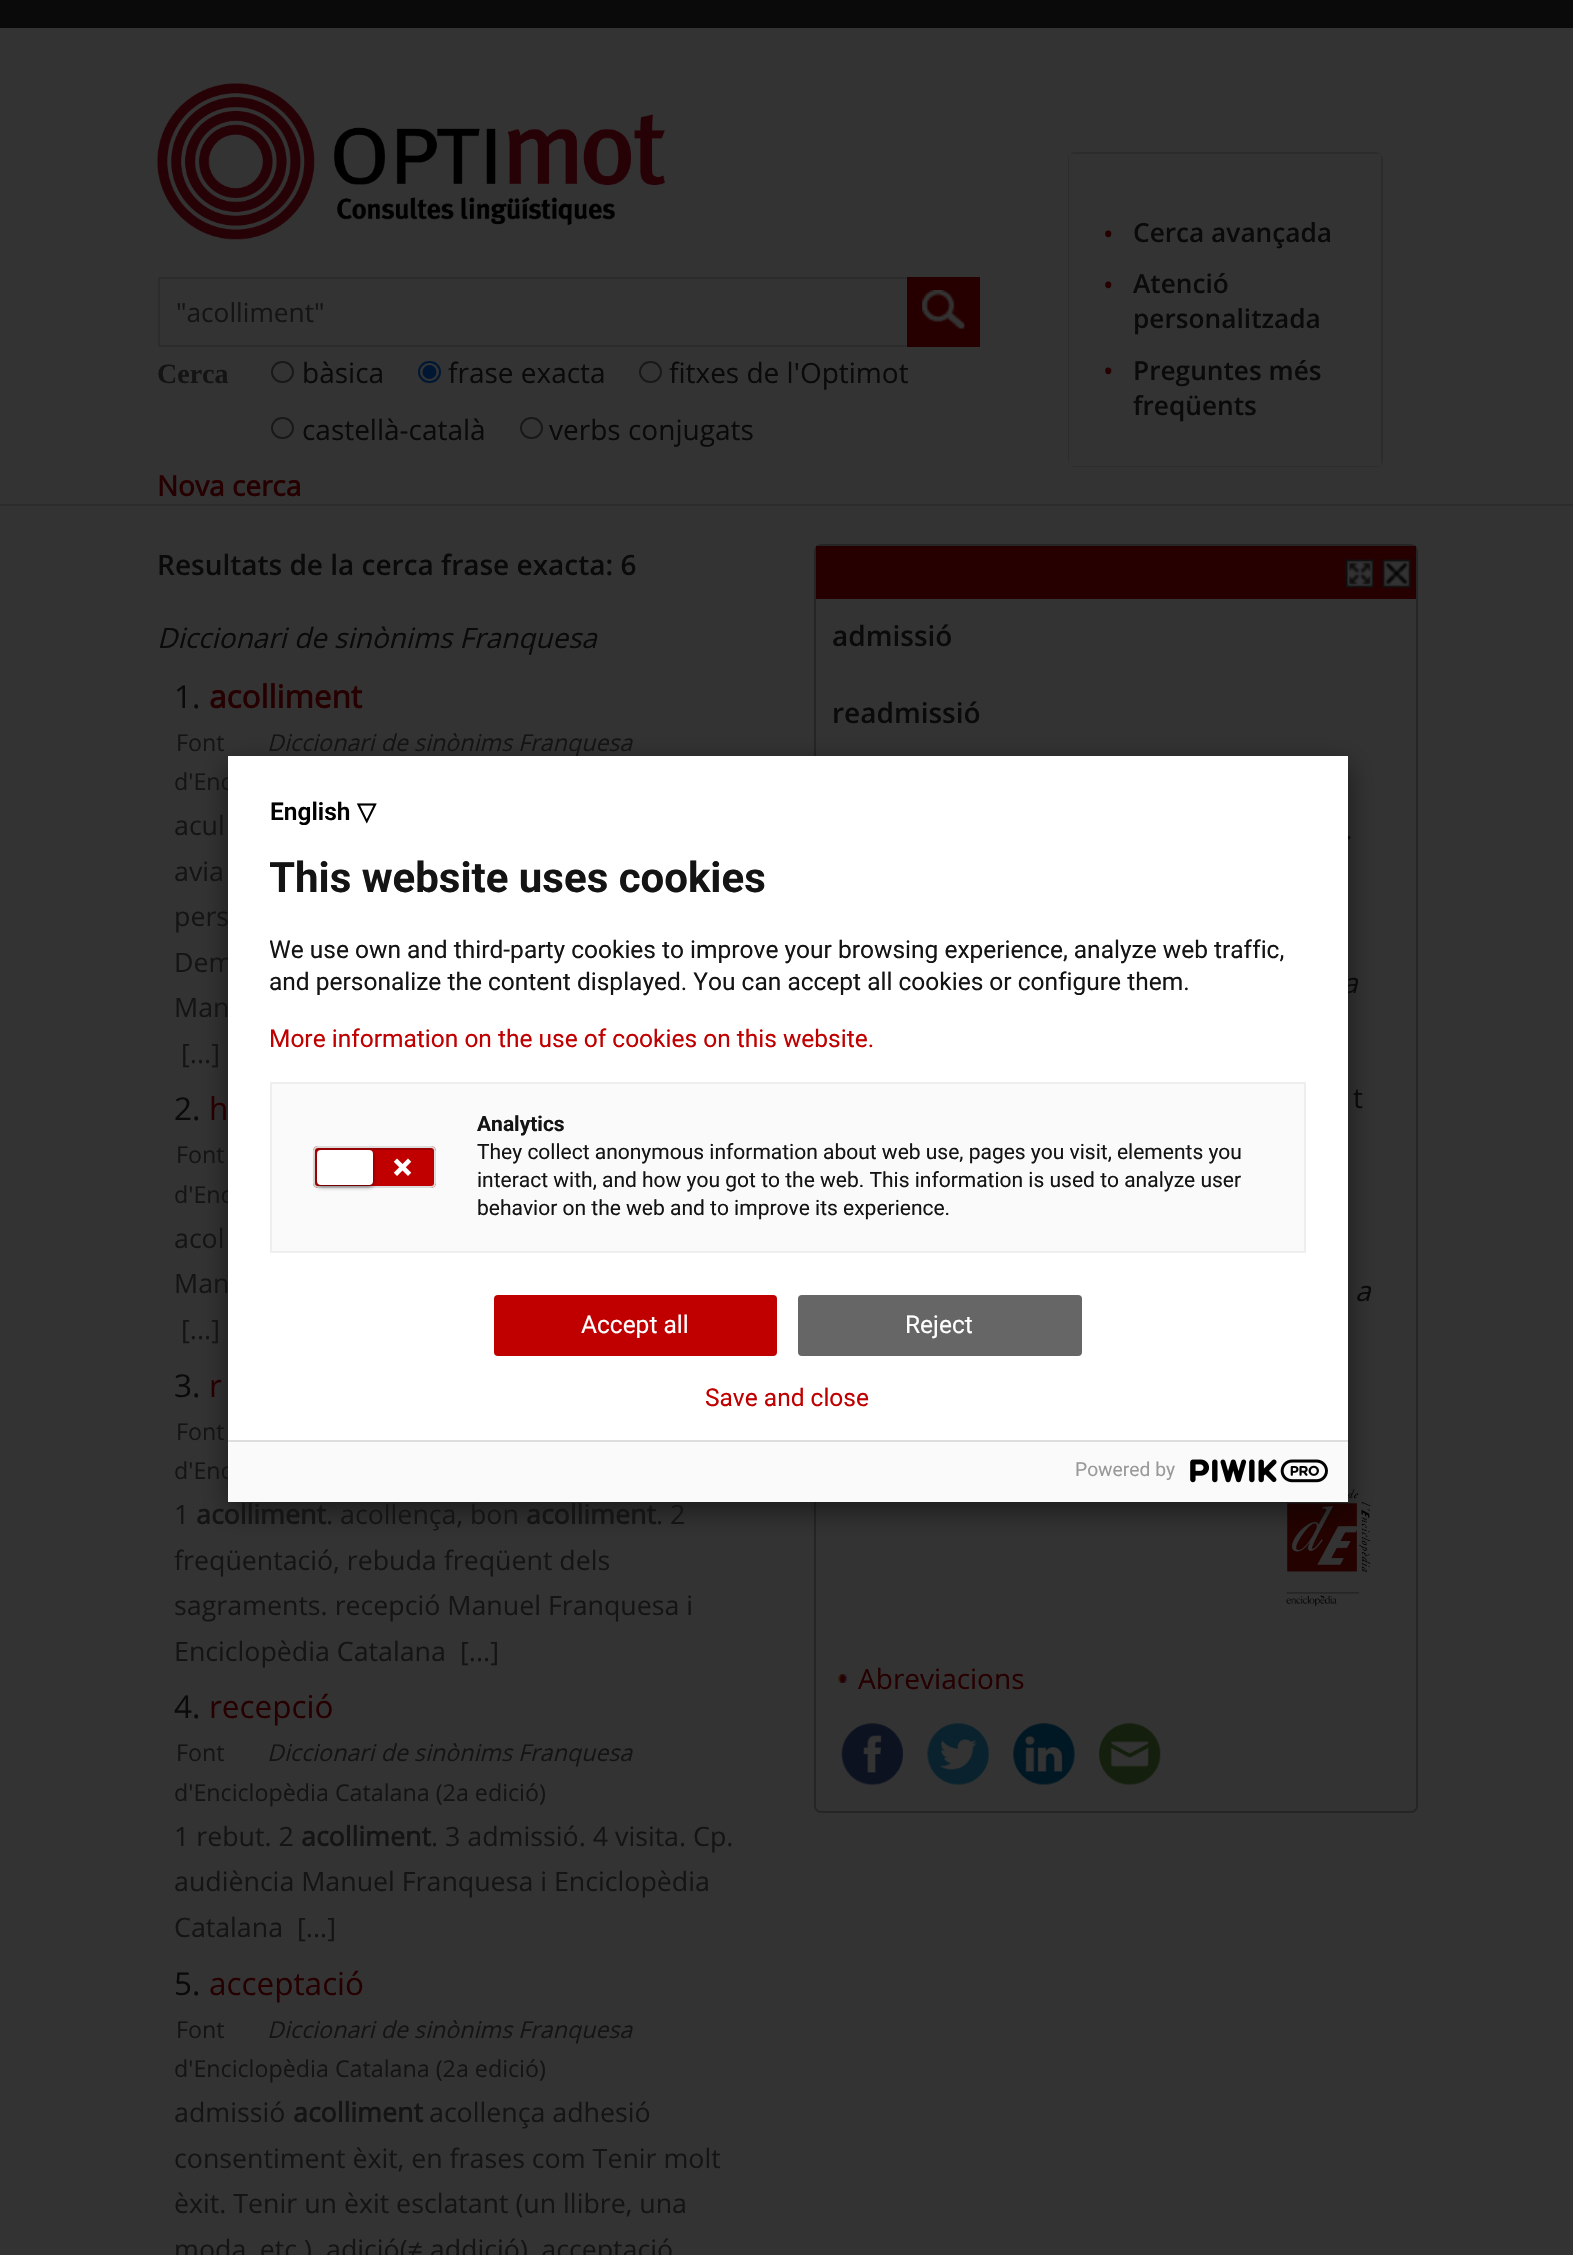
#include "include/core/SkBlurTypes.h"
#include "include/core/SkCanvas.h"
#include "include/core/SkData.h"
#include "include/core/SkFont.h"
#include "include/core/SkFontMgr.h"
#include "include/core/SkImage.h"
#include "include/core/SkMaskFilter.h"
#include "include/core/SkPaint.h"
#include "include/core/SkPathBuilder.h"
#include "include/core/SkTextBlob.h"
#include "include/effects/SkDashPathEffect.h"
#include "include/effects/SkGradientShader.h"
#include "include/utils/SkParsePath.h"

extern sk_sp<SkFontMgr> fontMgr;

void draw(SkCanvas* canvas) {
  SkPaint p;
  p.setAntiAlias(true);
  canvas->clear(SkColorSetRGB(51, 51, 51));
  p.setColor(SkColorSetRGB(10, 10, 10));
  canvas->drawRect(SkRect::MakeLTRB(0, 0, 1573, 28), p);
  p.setColor(SkColorSetRGB(44, 44, 44));
  canvas->drawRect(SkRect::MakeLTRB(0, 504, 1573, 506), p);
  canvas->drawImageRect(SkImages::DeferredFromEncodedData(SkData::MakeFromFileName("images/1.png")), SkRect::MakeLTRB(157, 83, 665, 240), SkSamplingOptions());
  p.setStyle(SkPaint::kStroke_Style);
  p.setStrokeWidth(2);
  canvas->drawRect(SkRect::MakeLTRB(159, 278, 979, 346), p);
  p.setStyle(SkPaint::kFill_Style);
  p.setColor(SkColorSetRGB(38, 0, 0));
  canvas->drawRect(SkRect::MakeLTRB(907, 277, 980, 347), p);
  canvas->drawImageRect(SkImages::DeferredFromEncodedData(SkData::MakeFromFileName("images/2.png")), SkRect::MakeLTRB(922, 290, 965, 329), SkSamplingOptions());
  p.setStyle(SkPaint::kStroke_Style);
  p.setColor(SkColorSetRGB(44, 44, 44));
  canvas->drawRoundRect(SkRect::MakeLTRB(1069, 153, 1382, 466), 6, 6, p);
  p.setStyle(SkPaint::kFill_Style);
  p.setColor(SkColorSetRGB(51, 51, 51));
  canvas->drawRect(SkRect::MakeLTRB(1069, 154, 1381, 466), p);
  p.setStyle(SkPaint::kStroke_Style);
  p.setColor(SkColorSetRGB(24, 24, 24));
  canvas->drawRoundRect(SkRect::MakeLTRB(272, 362, 293, 382), 10, 10, p);
  p.setColor(SkColorSetRGB(0, 23, 51));
  canvas->drawRoundRect(SkRect::MakeLTRB(419, 362, 440, 382), 10, 10, p);
  p.setStyle(SkPaint::kFill_Style);
  canvas->drawCircle(429.5f, 372, 7, p);
  p.setStyle(SkPaint::kStroke_Style);
  p.setColor(SkColorSetRGB(24, 24, 24));
  canvas->drawRoundRect(SkRect::MakeLTRB(640, 362, 661, 382), 10, 10, p);
  canvas->drawRoundRect(SkRect::MakeLTRB(272, 418, 293, 438), 10, 10, p);
  canvas->drawRoundRect(SkRect::MakeLTRB(521, 418, 542, 438), 10, 10, p);
  p.setColor(SkColorSetRGB(37, 37, 37));
  canvas->drawRoundRect(SkRect::MakeLTRB(815, 545, 1417, 1812), 6, 6, p);
  p.setStyle(SkPaint::kFill_Style);
  p.setColor(SkColorSetRGB(38, 0, 0));
  canvas->drawRect(SkRect::MakeLTRB(816, 546, 1416, 599), p);
  canvas->drawImageRect(SkImages::DeferredFromEncodedData(SkData::MakeFromFileName("images/3.png")), SkRect::MakeLTRB(1345, 559, 1374, 588), SkSamplingOptions());
  canvas->drawImageRect(SkImages::DeferredFromEncodedData(SkData::MakeFromFileName("images/4.png")), SkRect::MakeLTRB(1382, 559, 1411, 588), SkSamplingOptions());
  canvas->drawImageRect(SkImages::DeferredFromEncodedData(SkData::MakeFromFileName("images/5.png")), SkRect::MakeLTRB(1286, 1489, 1371, 1606), SkSamplingOptions());
  canvas->drawImageRect(SkImages::DeferredFromEncodedData(SkData::MakeFromFileName("images/6.png")), SkRect::MakeLTRB(838, 1674, 847, 1683), SkSamplingOptions());
  canvas->drawImageRect(SkImages::DeferredFromEncodedData(SkData::MakeFromFileName("images/7.png")), SkRect::MakeLTRB(841, 1723, 903, 1785), SkSamplingOptions());
  canvas->drawImageRect(SkImages::DeferredFromEncodedData(SkData::MakeFromFileName("images/8.png")), SkRect::MakeLTRB(927, 1723, 989, 1785), SkSamplingOptions());
  canvas->drawImageRect(SkImages::DeferredFromEncodedData(SkData::MakeFromFileName("images/9.png")), SkRect::MakeLTRB(1013, 1723, 1075, 1785), SkSamplingOptions());
  canvas->drawImageRect(SkImages::DeferredFromEncodedData(SkData::MakeFromFileName("images/10.png")), SkRect::MakeLTRB(1099, 1723, 1161, 1785), SkSamplingOptions());
  p.setColor(SkColorSetARGB(128, 0, 0, 0));
  p.setMaskFilter(SkMaskFilter::MakeBlur(kNormal_SkBlurStyle, 13));
  canvas->drawRect(SkRect::MakeLTRB(228, 765, 1348, 1510), p);
  p.setMaskFilter(nullptr);
  p.setColor(SkColorSetRGB(221, 221, 221));
  canvas->drawRect(SkRect::MakeLTRB(228, 1440, 1348, 1442), p);
  SkFont font1(fontMgr->matchFamilyStyle("Open Sans", SkFontStyle::Normal()), 26.25f);
  font1.setSubpixel(true);
  p.setColor(SkColorSetRGB(20, 20, 20));
  canvas->drawString("\"acolliment\"", 176, 322, font1, p);
  SkFont font2(fontMgr->matchFamilyStyle("Open Sans", SkFontStyle::Normal()), 28);
  font2.setSubpixel(true);
  p.setColor(SkColorSetRGB(38, 0, 0));
  canvas->drawString("•", 1103, 244, font2, p);
  SkFont font3(fontMgr->matchFamilyStyle("Open Sans", SkFontStyle(600, SkFontStyle::kNormal_Width, SkFontStyle::kUpright_Slant)), 26.25f);
  font3.setSubpixel(true);
  p.setColor(SkColorSetRGB(10, 10, 10));
  canvas->drawString("Cerca avançada", 1133, 242, font3, p);
  p.setColor(SkColorSetRGB(38, 0, 0));
  canvas->drawString("•", 1103, 295, font2, p);
  p.setColor(SkColorSetRGB(10, 10, 10));
  canvas->drawString("Atenció", 1133, 293, font3, p);
  canvas->drawString("personalitzada", 1133, 328, font3, p);
  p.setColor(SkColorSetRGB(38, 0, 0));
  canvas->drawString("•", 1103, 381, font2, p);
  p.setColor(SkColorSetRGB(10, 10, 10));
  canvas->drawString("Preguntes més", 1133, 380, font3, p);
  canvas->drawString("freqüents", 1133, 415, font3, p);
  SkFont font4(fontMgr->matchFamilyStyle("Liberation Serif", SkFontStyle::Bold()), 28);
  font4.setSubpixel(true);
  p.setColor(SkColorSetRGB(20, 20, 20));
  canvas->drawString("Cerca", 157, 383, font4, p);
  p.setColor(SkColorSetRGB(10, 10, 10));
  canvas->drawString("bàsica", 302, 383, font2, p);
  canvas->drawString("frase exacta", 448, 383, font2, p);
  canvas->drawString("fitxes de l'Optimot", 669, 383, font2, p);
  canvas->drawString("castellà-català", 302, 440, font2, p);
  canvas->drawString("verbs conjugats", 549, 440, font2, p);
  SkFont font5(fontMgr->matchFamilyStyle("Open Sans", SkFontStyle::Bold()), 28);
  font5.setSubpixel(true);
  p.setColor(SkColorSetRGB(38, 0, 0));
  canvas->drawString("Nova cerca", 157, 496, font5, p);
  SkFont font6(fontMgr->matchFamilyStyle("Open Sans", SkFontStyle(600, SkFontStyle::kNormal_Width, SkFontStyle::kUpright_Slant)), 28);
  font6.setSubpixel(true);
  p.setColor(SkColorSetRGB(10, 10, 10));
  canvas->drawString("Resultats de la cerca frase exacta: 6", 157, 575, font6, p);
  SkFont font7(fontMgr->matchFamilyStyle("Open Sans", SkFontStyle::Italic()), 28);
  font7.setSubpixel(true);
  canvas->drawString("Diccionari de sinònims Franquesa", 157, 648, font7, p);
  SkFont font8(fontMgr->matchFamilyStyle("Open Sans", SkFontStyle::Normal()), 31.5f);
  font8.setSubpixel(true);
  canvas->drawString("1.", 174, 708, font8, p);
  SkFont font9(fontMgr->matchFamilyStyle("Open Sans", SkFontStyle::Bold()), 31.5f);
  font9.setSubpixel(true);
  p.setColor(SkColorSetRGB(38, 0, 0));
  canvas->drawString("acolliment", 209, 708, font9, p);
  SkFont font10(fontMgr->matchFamilyStyle("Open Sans", SkFontStyle::Normal()), 23.25f);
  font10.setSubpixel(true);
  p.setColor(SkColorSetRGB(20, 20, 20));
  canvas->drawString("Font", 176, 751, font10, p);
  SkFont font11(fontMgr->matchFamilyStyle("Open Sans", SkFontStyle::Italic()), 23.25f);
  font11.setSubpixel(true);
  canvas->drawString("Diccionari de sinònims Franquesa", 267, 751, font11, p);
  canvas->drawString("d'Enc", 174, 790, font10, p);
  SkFont font12(fontMgr->matchFamilyStyle("Open Sans", SkFontStyle::Normal()), 26.75f);
  font12.setSubpixel(true);
  canvas->drawString("acul", 174, 835, font12, p);
  canvas->drawString("avia", 174, 881, font12, p);
  canvas->drawString("pers", 174, 926, font12, p);
  canvas->drawString("Dem", 174, 972, font12, p);
  canvas->drawString("Man", 174, 1017, font12, p);
  canvas->drawString("[...]", 181, 1063, font12, p);
  p.setColor(SkColorSetRGB(10, 10, 10));
  canvas->drawString("2.", 174, 1120, font8, p);
  p.setColor(SkColorSetRGB(38, 0, 0));
  canvas->drawString("h", 209, 1120, font8, p);
  p.setColor(SkColorSetRGB(20, 20, 20));
  canvas->drawString("Font", 176, 1163, font10, p);
  canvas->drawString("d'Enc", 174, 1203, font10, p);
  canvas->drawString("acol", 174, 1248, font12, p);
  canvas->drawString("Man", 174, 1293, font12, p);
  canvas->drawString("[...]", 181, 1339, font12, p);
  p.setColor(SkColorSetRGB(10, 10, 10));
  canvas->drawString("3.", 174, 1397, font8, p);
  p.setColor(SkColorSetRGB(38, 0, 0));
  canvas->drawString("r", 209, 1397, font8, p);
  p.setColor(SkColorSetRGB(20, 20, 20));
  canvas->drawString("Font", 176, 1440, font10, p);
  canvas->drawString("d'Enc", 174, 1479, font10, p);
  canvas->drawString("1", 174, 1524, font12, p);
  SkFont font13(fontMgr->matchFamilyStyle("Open Sans", SkFontStyle::Bold()), 26.75f);
  font13.setSubpixel(true);
  canvas->drawString("acolliment", 196, 1524, font13, p);
  canvas->drawString(". acollença, bon", 326, 1524, font12, p);
  canvas->drawString("acolliment", 526, 1524, font13, p);
  canvas->drawString(". 2", 656, 1524, font12, p);
  canvas->drawString("freqüentació, rebuda freqüent dels", 174, 1570, font12, p);
  canvas->drawString("sagraments. recepció Manuel Franquesa i", 174, 1615, font12, p);
  canvas->drawString("Enciclopèdia Catalana", 174, 1661, font12, p);
  canvas->drawString("[...]", 460, 1661, font12, p);
  p.setColor(SkColorSetRGB(10, 10, 10));
  canvas->drawString("4.", 174, 1718, font8, p);
  p.setColor(SkColorSetRGB(38, 0, 0));
  canvas->drawString("recepció", 209, 1718, font8, p);
  p.setColor(SkColorSetRGB(20, 20, 20));
  canvas->drawString("Font", 176, 1761, font10, p);
  canvas->drawString("Diccionari de sinònims Franquesa", 267, 1761, font11, p);
  canvas->drawString("d'Enciclopèdia Catalana (2a edició)", 174, 1801, font10, p);
  canvas->drawString("1 rebut. 2", 174, 1846, font12, p);
  canvas->drawString("acolliment", 301, 1846, font13, p);
  canvas->drawString(". 3 admissió. 4 visita. Cp.", 431, 1846, font12, p);
  canvas->drawString("audiència Manuel Franquesa i Enciclopèdia", 174, 1891, font12, p);
  canvas->drawString("Catalana", 174, 1937, font12, p);
  canvas->drawString("[...]", 297, 1937, font12, p);
  p.setColor(SkColorSetRGB(10, 10, 10));
  canvas->drawString("5.", 174, 1995, font8, p);
  p.setColor(SkColorSetRGB(38, 0, 0));
  canvas->drawString("acceptació", 209, 1995, font8, p);
  p.setColor(SkColorSetRGB(20, 20, 20));
  canvas->drawString("Font", 176, 2038, font10, p);
  canvas->drawString("Diccionari de sinònims Franquesa", 267, 2038, font11, p);
  canvas->drawString("d'Enciclopèdia Catalana (2a edició)", 174, 2077, font10, p);
  canvas->drawString("admissió", 174, 2122, font12, p);
  canvas->drawString("acolliment", 293, 2122, font13, p);
  canvas->drawString("acollença adhesió", 429, 2122, font12, p);
  canvas->drawString("consentiment èxit, en frases com Tenir molt", 174, 2168, font12, p);
  canvas->drawString("èxit. Tenir un èxit esclatant (un llibre, una", 174, 2213, font12, p);
  canvas->drawString("moda, etc.)", 174, 2259, font12, p);
  canvas->drawString("adició(≠ addició), acceptació", 326, 2259, font12, p);
  p.setColor(SkColorSetRGB(10, 10, 10));
  canvas->drawString("admissió", 832, 646, font6, p);
  canvas->drawString("readmissió", 832, 723, font6, p);
  canvas->drawString(".", 1345, 839, font2, p);
  canvas->drawString("a", 1342, 993, font7, p);
  canvas->drawString("t", 1353, 1108, font2, p);
  canvas->drawString("a", 1355, 1301, font7, p);
  p.setColor(SkColorSetRGB(38, 0, 0));
  canvas->drawString("Abreviacions", 858, 1689, font2, p);
  p.setColor(SK_ColorWHITE);
  canvas->drawRect(SkRect::MakeLTRB(228, 756, 1348, 1440), p);
  SkFont font14(fontMgr->matchFamilyStyle("Roboto", SkFontStyle(600, SkFontStyle::kNormal_Width, SkFontStyle::kUpright_Slant)), 24.5f);
  font14.setSubpixel(true);
  p.setColor(SK_ColorBLACK);
  canvas->drawString("English", 270, 820, font14, p);
  SkFont font15(fontMgr->matchFamilyStyle("DejaVu Sans", SkFontStyle::Bold()), 24.5f);
  font15.setSubpixel(true);
  canvas->drawString("▽", 357, 820, font15, p);
  canvas->save();
  canvas->clipRect(SkRect::MakeLTRB(270, 798, 1306, 1253));
  SkFont font16(fontMgr->matchFamilyStyle("Roboto", SkFontStyle::Bold()), 42);
  font16.setSubpixel(true);
  p.setColor(SkColorSetRGB(20, 20, 20));
  canvas->drawString("This website uses cookies", 269, 892, font16, p);
  SkFont font17(fontMgr->matchFamilyStyle("Roboto", SkFontStyle::Normal()), 24.5f);
  font17.setSubpixel(true);
  canvas->drawString("We use own and third-party cookies to improve your browsing experience, analyze web traffic,", 269, 958, font17, p);
  canvas->restore();
  canvas->drawString("and personalize the content displayed. You can accept all cookies or configure them.", 269, 990, font17, p);
  p.setColor(SkColorSetRGB(192, 0, 0));
  canvas->drawString("More information on the use of cookies on this website.", 269, 1047, font17, p);
  p.setColor(SkColorSetRGB(250, 250, 250));
  canvas->drawRect(SkRect::MakeLTRB(271, 1083, 1305, 1252), p);
  p.setStyle(SkPaint::kStroke_Style);
  p.setColor(SkColorSetRGB(238, 238, 238));
  canvas->drawRect(SkRect::MakeLTRB(271, 1083, 1305, 1252), p);
  p.setStyle(SkPaint::kFill_Style);
  p.setColor(SkColorSetRGB(192, 0, 0));
  canvas->drawRoundRect(SkRect::MakeLTRB(313, 1146, 436, 1188), 5, 5, p);
  p.setColor(SkColorSetRGB(154, 0, 0));
  canvas->drawPath(SkPathBuilder().moveTo(318, 1150).lineTo(430, 1150).cubicTo(432, 1150, 434, 1151, 434, 1153).cubicTo(434, 1143, 415, 1148, 412, 1148).lineTo(338, 1148).cubicTo(334, 1148, 315, 1143, 315, 1153).cubicTo(315, 1151, 317, 1150, 318, 1150).close().detach(), p);
  p.setStyle(SkPaint::kStroke_Style);
  p.setColor(SkColorSetRGB(221, 221, 221));
  canvas->drawRoundRect(SkRect::MakeLTRB(314, 1147, 435, 1187), 4, 4, p);
  p.setStyle(SkPaint::kFill_Style);
  p.setColor(SkColorSetARGB(128, 0, 0, 0));
  p.setMaskFilter(SkMaskFilter::MakeBlur(kNormal_SkBlurStyle, 2));
  canvas->drawRoundRect(SkRect::MakeLTRB(317, 1152, 373, 1187), 4, 4, p);
  p.setMaskFilter(nullptr);
  p.setColor(SK_ColorWHITE);
  canvas->drawRoundRect(SkRect::MakeLTRB(317, 1150, 373, 1185), 4, 4, p);
  canvas->drawImageRect(SkImages::DeferredFromEncodedData(SkData::MakeFromFileName("images/11.png")), SkRect::MakeLTRB(393, 1158, 412, 1176), SkSamplingOptions());
  SkFont font18(fontMgr->matchFamilyStyle("Roboto", SkFontStyle::Bold()), 21);
  font18.setSubpixel(true);
  p.setColor(SkColorSetRGB(20, 20, 20));
  canvas->drawString("Analytics", 477, 1131, font18, p);
  SkFont font19(fontMgr->matchFamilyStyle("Roboto", SkFontStyle::Normal()), 21);
  font19.setSubpixel(true);
  canvas->drawString("They collect anonymous information about web use, pages you visit, elements you", 477, 1159, font19, p);
  canvas->drawString("interact with, and how you got to the web. This information is used to analyze user", 477, 1187, font19, p);
  canvas->drawString("behavior on the web and to improve its experience.", 477, 1215, font19, p);
  p.setColor(SkColorSetRGB(192, 0, 0));
  canvas->drawRoundRect(SkRect::MakeLTRB(494, 1295, 777, 1356), 4, 4, p);
  p.setColor(SK_ColorWHITE);
  canvas->drawString("Accept all", 581, 1333, font17, p);
  p.setColor(SkColorSetRGB(102, 102, 102));
  canvas->drawRoundRect(SkRect::MakeLTRB(798, 1295, 1082, 1356), 4, 4, p);
  p.setColor(SK_ColorWHITE);
  canvas->drawString("Reject", 905, 1333, font17, p);
  p.setColor(SkColorSetRGB(192, 0, 0));
  canvas->drawString("Save and close", 705, 1406, font17, p);
  p.setColor(SkColorSetRGB(250, 250, 250));
  canvas->drawRect(SkRect::MakeLTRB(228, 1442, 1348, 1502), p);
  SkFont font20(fontMgr->matchFamilyStyle("Roboto", SkFontStyle::Normal()), 19.25f);
  font20.setSubpixel(true);
  p.setColor(SkColorSetRGB(153, 153, 153));
  canvas->drawString("Powered by", 1075, 1476, font20, p);
  canvas->drawImageRect(SkImages::DeferredFromEncodedData(SkData::MakeFromFileName("images/12.png")), SkRect::MakeLTRB(1190, 1459, 1328, 1483), SkSamplingOptions());
}
